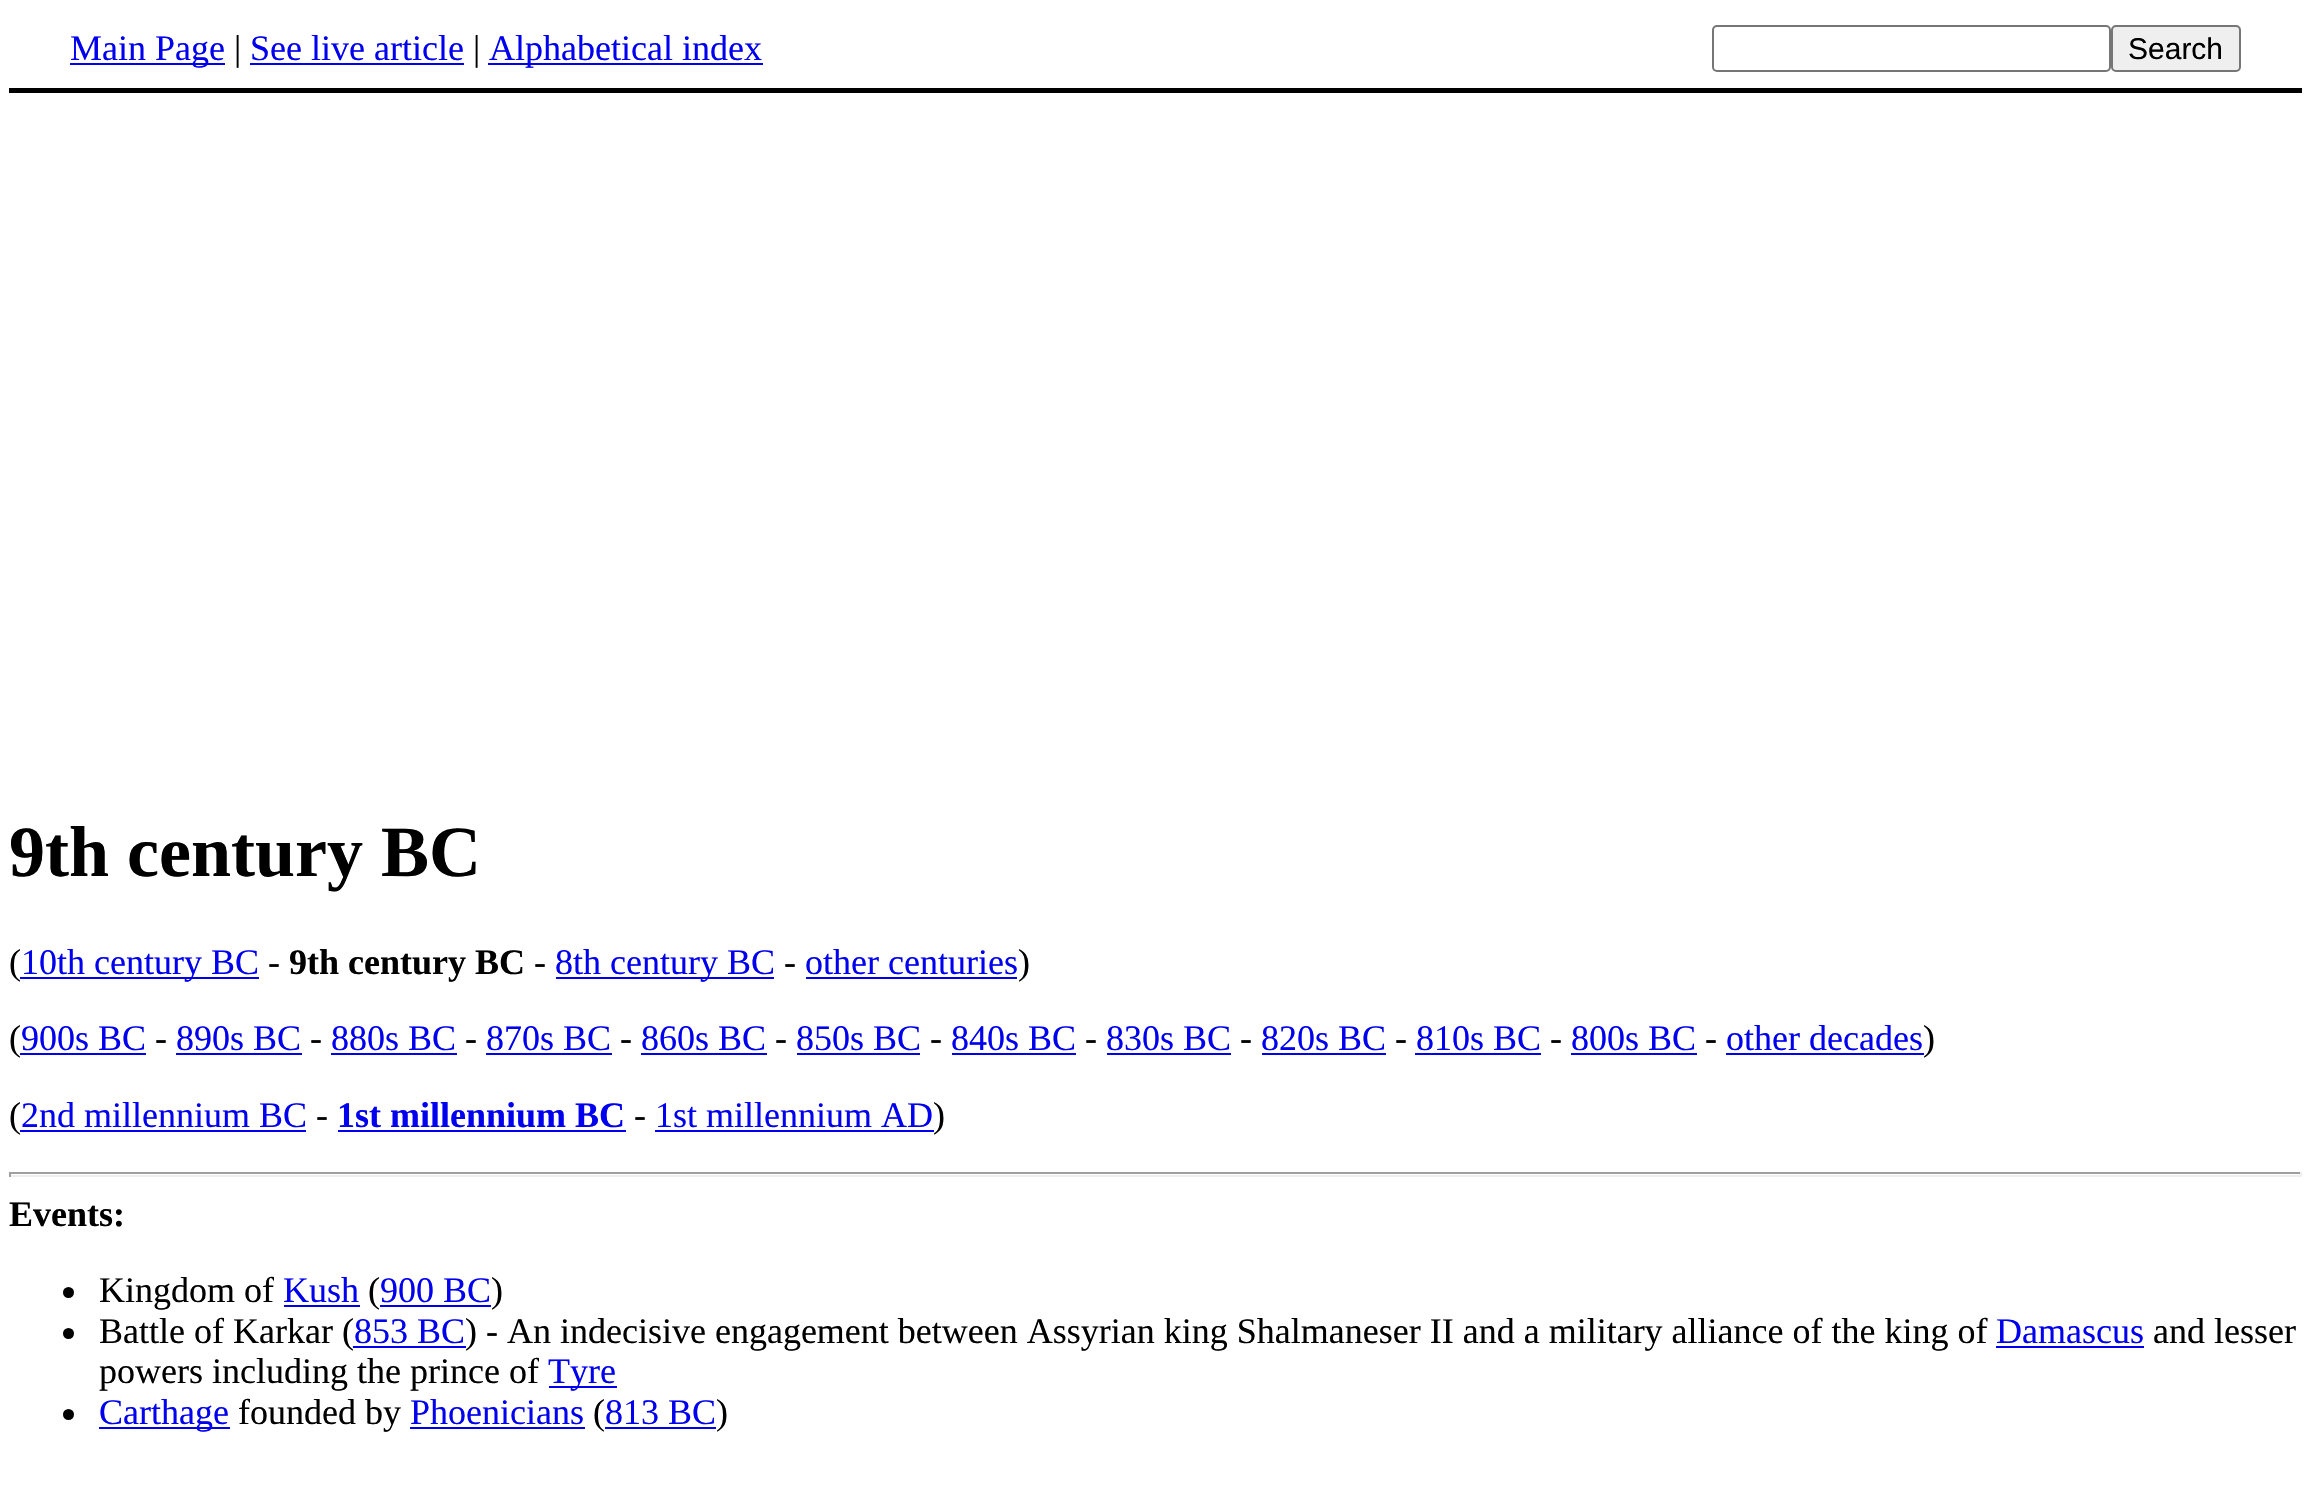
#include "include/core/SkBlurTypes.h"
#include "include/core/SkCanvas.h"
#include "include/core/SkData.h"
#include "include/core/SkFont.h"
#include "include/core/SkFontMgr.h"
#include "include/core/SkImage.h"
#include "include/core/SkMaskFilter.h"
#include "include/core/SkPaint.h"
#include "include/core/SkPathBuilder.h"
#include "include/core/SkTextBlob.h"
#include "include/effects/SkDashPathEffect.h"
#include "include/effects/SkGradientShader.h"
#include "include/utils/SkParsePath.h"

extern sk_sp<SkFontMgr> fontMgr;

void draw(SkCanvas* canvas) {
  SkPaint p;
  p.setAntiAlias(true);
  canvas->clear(SK_ColorWHITE);
  p.setColor(SK_ColorBLACK);
  canvas->drawRect(SkRect::MakeLTRB(9, 88, 2302, 93), p);
  p.setColor(SkColorSetRGB(0, 0, 238));
  canvas->drawRect(SkRect::MakeLTRB(70, 63, 225, 65), p);
  canvas->drawRect(SkRect::MakeLTRB(250, 63, 464, 65), p);
  canvas->drawRect(SkRect::MakeLTRB(488, 63, 763, 65), p);
  p.setStyle(SkPaint::kStroke_Style);
  p.setStrokeWidth(2);
  p.setColor(SkColorSetRGB(118, 118, 118));
  canvas->drawRoundRect(SkRect::MakeLTRB(1713, 26, 2110, 71), 4, 4, p);
  p.setStyle(SkPaint::kFill_Style);
  p.setColor(SkColorSetRGB(239, 239, 239));
  canvas->drawRoundRect(SkRect::MakeLTRB(2112, 26, 2240, 71), 4, 4, p);
  p.setStyle(SkPaint::kStroke_Style);
  p.setColor(SkColorSetRGB(118, 118, 118));
  canvas->drawRoundRect(SkRect::MakeLTRB(2112, 26, 2240, 71), 4, 4, p);
  p.setStyle(SkPaint::kFill_Style);
  p.setColor(SkColorSetRGB(0, 0, 238));
  canvas->drawRect(SkRect::MakeLTRB(20, 977, 259, 979), p);
  canvas->drawRect(SkRect::MakeLTRB(556, 977, 774, 979), p);
  canvas->drawRect(SkRect::MakeLTRB(806, 977, 1017, 979), p);
  canvas->drawRect(SkRect::MakeLTRB(20, 1053, 146, 1055), p);
  canvas->drawRect(SkRect::MakeLTRB(176, 1053, 302, 1055), p);
  canvas->drawRect(SkRect::MakeLTRB(331, 1053, 457, 1055), p);
  canvas->drawRect(SkRect::MakeLTRB(486, 1053, 612, 1055), p);
  canvas->drawRect(SkRect::MakeLTRB(641, 1053, 767, 1055), p);
  canvas->drawRect(SkRect::MakeLTRB(797, 1053, 920, 1055), p);
  canvas->drawRect(SkRect::MakeLTRB(952, 1053, 1076, 1055), p);
  canvas->drawRect(SkRect::MakeLTRB(1107, 1053, 1231, 1055), p);
  canvas->drawRect(SkRect::MakeLTRB(1262, 1053, 1386, 1055), p);
  canvas->drawRect(SkRect::MakeLTRB(1415, 1053, 1541, 1055), p);
  canvas->drawRect(SkRect::MakeLTRB(1571, 1053, 1697, 1055), p);
  canvas->drawRect(SkRect::MakeLTRB(1726, 1053, 1924, 1055), p);
  canvas->drawRect(SkRect::MakeLTRB(20, 1130, 306, 1132), p);
  canvas->drawRect(SkRect::MakeLTRB(338, 1130, 626, 1132), p);
  canvas->drawRect(SkRect::MakeLTRB(655, 1130, 934, 1132), p);
  p.setColor(SkColorSetRGB(159, 159, 159));
  canvas->drawRect(SkRect::MakeLTRB(9, 1172, 2302, 1174), p);
  p.setColor(SkColorSetRGB(238, 238, 238));
  canvas->drawRect(SkRect::MakeLTRB(2300, 1172, 2302, 1177), p);
  canvas->drawRect(SkRect::MakeLTRB(9, 1175, 2302, 1177), p);
  p.setColor(SkColorSetRGB(159, 159, 159));
  canvas->drawRect(SkRect::MakeLTRB(9, 1172, 11, 1177), p);
  p.setColor(SK_ColorBLACK);
  canvas->drawCircle(68.5f, 1292.5f, 5.5f, p);
  p.setColor(SkColorSetRGB(0, 0, 238));
  canvas->drawRect(SkRect::MakeLTRB(284, 1305, 360, 1307), p);
  canvas->drawRect(SkRect::MakeLTRB(380, 1305, 491, 1307), p);
  p.setColor(SK_ColorBLACK);
  canvas->drawCircle(68.5f, 1333.5f, 5.5f, p);
  p.setColor(SkColorSetRGB(0, 0, 238));
  canvas->drawRect(SkRect::MakeLTRB(353, 1346, 466, 1348), p);
  canvas->drawRect(SkRect::MakeLTRB(1996, 1346, 2144, 1348), p);
  canvas->drawRect(SkRect::MakeLTRB(549, 1386, 617, 1388), p);
  p.setColor(SK_ColorBLACK);
  canvas->drawCircle(68.5f, 1414.5f, 5.5f, p);
  p.setColor(SkColorSetRGB(0, 0, 238));
  canvas->drawRect(SkRect::MakeLTRB(99, 1427, 230, 1429), p);
  canvas->drawRect(SkRect::MakeLTRB(410, 1427, 585, 1429), p);
  canvas->drawRect(SkRect::MakeLTRB(605, 1427, 716, 1429), p);
  SkFont font1(fontMgr->matchFamilyStyle("Liberation Serif", SkFontStyle::Normal()), 36);
  font1.setSubpixel(true);
  canvas->drawString("Main Page", 70, 60, font1, p);
  p.setColor(SK_ColorBLACK);
  canvas->drawString("|", 234, 60, font1, p);
  p.setColor(SkColorSetRGB(0, 0, 238));
  canvas->drawString("See live article", 250, 60, font1, p);
  p.setColor(SK_ColorBLACK);
  canvas->drawString("|", 473, 60, font1, p);
  p.setColor(SkColorSetRGB(0, 0, 238));
  canvas->drawString("Alphabetical index", 489, 60, font1, p);
  SkFont font2(fontMgr->matchFamilyStyle("Liberation Sans", SkFontStyle::Normal()), 30);
  font2.setSubpixel(true);
  p.setColor(SK_ColorBLACK);
  canvas->drawString("Search", 2128, 59, font2, p);
  SkFont font3(fontMgr->matchFamilyStyle("Liberation Serif", SkFontStyle::Bold()), 72);
  font3.setSubpixel(true);
  canvas->drawString("9th century BC", 9, 876, font3, p);
  canvas->drawString("(", 9, 974, font1, p);
  p.setColor(SkColorSetRGB(0, 0, 238));
  canvas->drawString("10th century BC", 21, 974, font1, p);
  p.setColor(SK_ColorBLACK);
  canvas->drawString("-", 268, 974, font1, p);
  SkFont font4(fontMgr->matchFamilyStyle("Liberation Serif", SkFontStyle::Bold()), 36);
  font4.setSubpixel(true);
  canvas->drawString("9th century BC", 289, 974, font4, p);
  canvas->drawString("-", 534, 974, font1, p);
  p.setColor(SkColorSetRGB(0, 0, 238));
  canvas->drawString("8th century BC", 555, 974, font1, p);
  p.setColor(SK_ColorBLACK);
  canvas->drawString("-", 784, 974, font1, p);
  p.setColor(SkColorSetRGB(0, 0, 238));
  canvas->drawString("other centuries", 805, 974, font1, p);
  p.setColor(SK_ColorBLACK);
  canvas->drawString(")", 1018, 974, font1, p);
  canvas->drawString("(", 9, 1050, font1, p);
  p.setColor(SkColorSetRGB(0, 0, 238));
  canvas->drawString("900s BC", 21, 1050, font1, p);
  p.setColor(SK_ColorBLACK);
  canvas->drawString("-", 155, 1050, font1, p);
  p.setColor(SkColorSetRGB(0, 0, 238));
  canvas->drawString("890s BC", 176, 1050, font1, p);
  p.setColor(SK_ColorBLACK);
  canvas->drawString("-", 310, 1050, font1, p);
  p.setColor(SkColorSetRGB(0, 0, 238));
  canvas->drawString("880s BC", 331, 1050, font1, p);
  p.setColor(SK_ColorBLACK);
  canvas->drawString("-", 465, 1050, font1, p);
  p.setColor(SkColorSetRGB(0, 0, 238));
  canvas->drawString("870s BC", 486, 1050, font1, p);
  p.setColor(SK_ColorBLACK);
  canvas->drawString("-", 620, 1050, font1, p);
  p.setColor(SkColorSetRGB(0, 0, 238));
  canvas->drawString("860s BC", 641, 1050, font1, p);
  p.setColor(SK_ColorBLACK);
  canvas->drawString("-", 775, 1050, font1, p);
  p.setColor(SkColorSetRGB(0, 0, 238));
  canvas->drawString("850s BC", 796, 1050, font1, p);
  p.setColor(SK_ColorBLACK);
  canvas->drawString("-", 930, 1050, font1, p);
  p.setColor(SkColorSetRGB(0, 0, 238));
  canvas->drawString("840s BC", 951, 1050, font1, p);
  p.setColor(SK_ColorBLACK);
  canvas->drawString("-", 1085, 1050, font1, p);
  p.setColor(SkColorSetRGB(0, 0, 238));
  canvas->drawString("830s BC", 1106, 1050, font1, p);
  p.setColor(SK_ColorBLACK);
  canvas->drawString("-", 1240, 1050, font1, p);
  p.setColor(SkColorSetRGB(0, 0, 238));
  canvas->drawString("820s BC", 1261, 1050, font1, p);
  p.setColor(SK_ColorBLACK);
  canvas->drawString("-", 1395, 1050, font1, p);
  p.setColor(SkColorSetRGB(0, 0, 238));
  canvas->drawString("810s BC", 1416, 1050, font1, p);
  p.setColor(SK_ColorBLACK);
  canvas->drawString("-", 1550, 1050, font1, p);
  p.setColor(SkColorSetRGB(0, 0, 238));
  canvas->drawString("800s BC", 1571, 1050, font1, p);
  p.setColor(SK_ColorBLACK);
  canvas->drawString("-", 1705, 1050, font1, p);
  p.setColor(SkColorSetRGB(0, 0, 238));
  canvas->drawString("other decades", 1726, 1050, font1, p);
  p.setColor(SK_ColorBLACK);
  canvas->drawString(")", 1923, 1050, font1, p);
  canvas->drawString("(", 9, 1127, font1, p);
  p.setColor(SkColorSetRGB(0, 0, 238));
  canvas->drawString("2nd millennium BC", 21, 1127, font1, p);
  p.setColor(SK_ColorBLACK);
  canvas->drawString("-", 316, 1127, font1, p);
  p.setColor(SkColorSetRGB(0, 0, 238));
  canvas->drawString("1st millennium BC", 337, 1127, font4, p);
  p.setColor(SK_ColorBLACK);
  canvas->drawString("-", 634, 1127, font1, p);
  p.setColor(SkColorSetRGB(0, 0, 238));
  canvas->drawString("1st millennium AD", 655, 1127, font1, p);
  p.setColor(SK_ColorBLACK);
  canvas->drawString(")", 933, 1127, font1, p);
  canvas->drawString("Events:", 9, 1226, font4, p);
  canvas->drawString("Kingdom of", 99, 1302, font1, p);
  p.setColor(SkColorSetRGB(0, 0, 238));
  canvas->drawString("Kush", 283, 1302, font1, p);
  p.setColor(SK_ColorBLACK);
  canvas->drawString("(", 368, 1302, font1, p);
  p.setColor(SkColorSetRGB(0, 0, 238));
  canvas->drawString("900 BC", 380, 1302, font1, p);
  p.setColor(SK_ColorBLACK);
  canvas->drawString(")", 491, 1302, font1, p);
  canvas->drawString("Battle of Karkar (", 99, 1343, font1, p);
  p.setColor(SkColorSetRGB(0, 0, 238));
  canvas->drawString("853 BC", 354, 1343, font1, p);
  p.setColor(SK_ColorBLACK);
  canvas->drawString(") - An indecisive engagement between Assyrian king Shalmaneser II and a military alliance of the king of", 465, 1343, font1, p);
  p.setColor(SkColorSetRGB(0, 0, 238));
  canvas->drawString("Damascus", 1996, 1343, font1, p);
  p.setColor(SK_ColorBLACK);
  canvas->drawString("and lesser", 2153, 1343, font1, p);
  canvas->drawString("powers including the prince of", 99, 1383, font1, p);
  p.setColor(SkColorSetRGB(0, 0, 238));
  canvas->drawString("Tyre", 548, 1383, font1, p);
  canvas->drawString("Carthage", 99, 1424, font1, p);
  p.setColor(SK_ColorBLACK);
  canvas->drawString("founded by", 238, 1424, font1, p);
  p.setColor(SkColorSetRGB(0, 0, 238));
  canvas->drawString("Phoenicians", 410, 1424, font1, p);
  p.setColor(SK_ColorBLACK);
  canvas->drawString("(", 593, 1424, font1, p);
  p.setColor(SkColorSetRGB(0, 0, 238));
  canvas->drawString("813 BC", 605, 1424, font1, p);
  p.setColor(SK_ColorBLACK);
  canvas->drawString(")", 716, 1424, font1, p);
}
